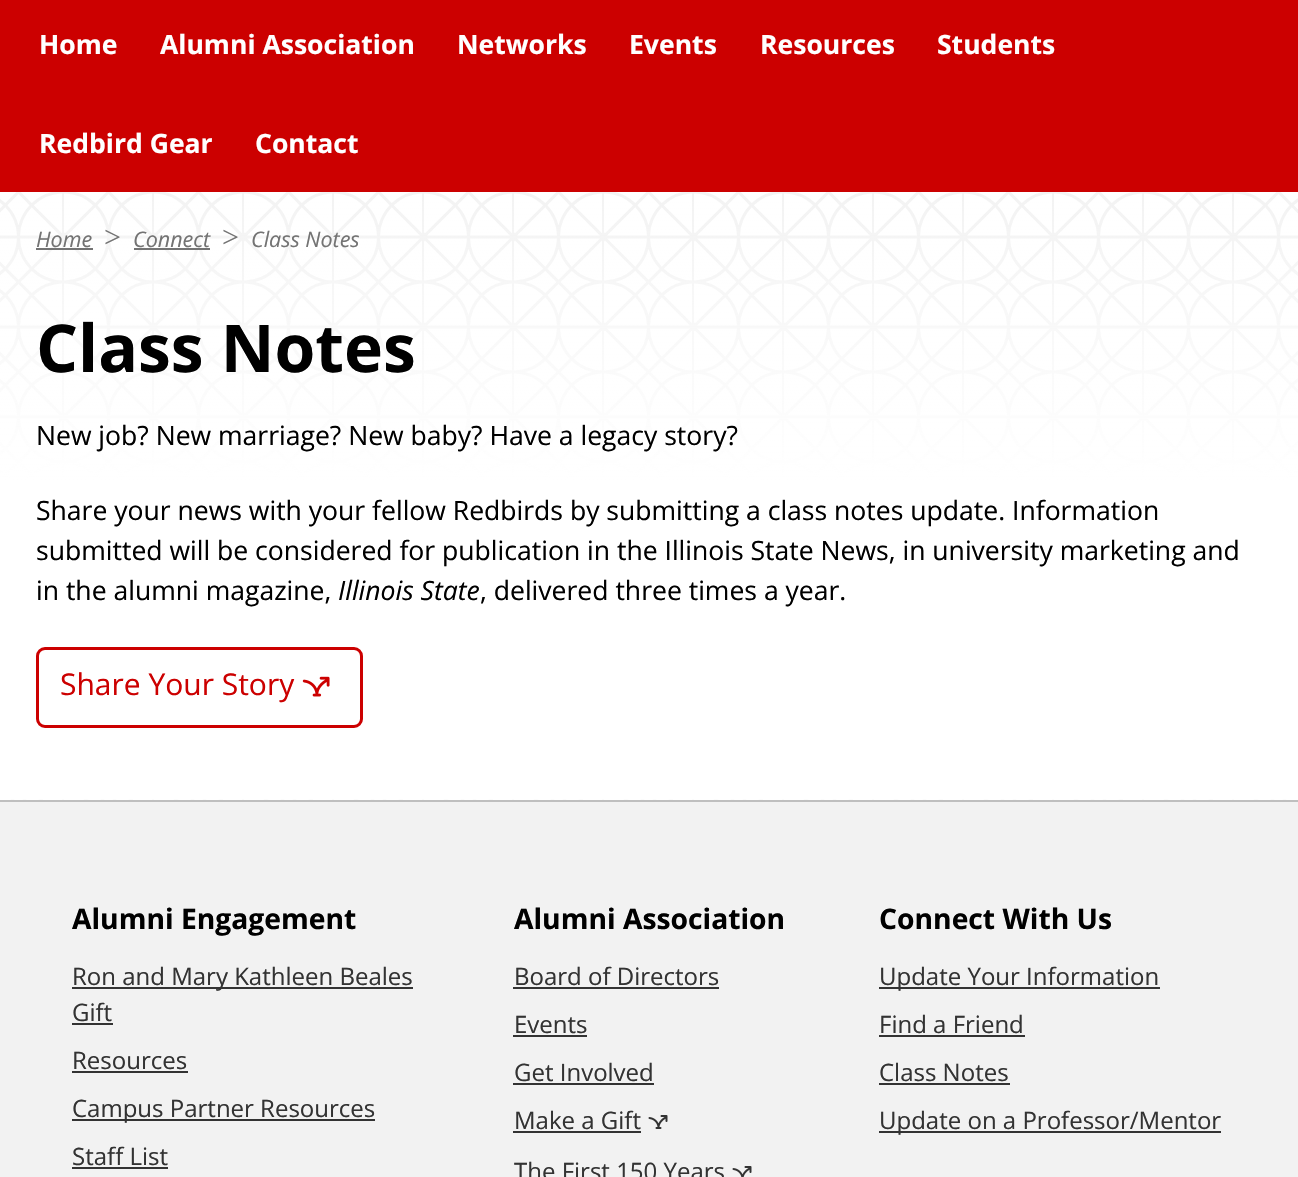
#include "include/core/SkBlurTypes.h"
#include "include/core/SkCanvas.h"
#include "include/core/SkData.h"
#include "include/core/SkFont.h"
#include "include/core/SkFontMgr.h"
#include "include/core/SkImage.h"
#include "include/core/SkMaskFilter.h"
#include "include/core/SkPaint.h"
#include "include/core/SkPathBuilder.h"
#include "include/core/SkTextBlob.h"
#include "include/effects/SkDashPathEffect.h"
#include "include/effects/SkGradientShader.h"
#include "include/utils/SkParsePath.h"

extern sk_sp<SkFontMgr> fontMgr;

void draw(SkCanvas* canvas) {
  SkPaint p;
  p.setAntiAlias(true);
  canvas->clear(SkColorSetRGB(204, 0, 0));
  p.setColor(SK_ColorWHITE);
  canvas->drawRect(SkRect::MakeLTRB(0, 192, 1298, 800), p);
  canvas->drawImageRect(SkImages::DeferredFromEncodedData(SkData::MakeFromFileName("images/1.png")), SkRect::MakeLTRB(0, 192, 1298, 800), SkSamplingOptions());
  p.setColor(SkColorSetRGB(115, 115, 115));
  canvas->drawRect(SkRect::MakeLTRB(36, 248, 93, 250), p);
  canvas->drawRect(SkRect::MakeLTRB(134, 248, 210, 250), p);
  p.setStyle(SkPaint::kStroke_Style);
  p.setStrokeWidth(3);
  p.setColor(SkColorSetRGB(204, 0, 0));
  canvas->drawRoundRect(SkRect::MakeLTRB(37.5f, 648.5f, 361.5f, 726.5f), 7.5f, 7.5f, p);
  canvas->drawImageRect(SkImages::DeferredFromEncodedData(SkData::MakeFromFileName("images/2.png")), SkRect::MakeLTRB(302, 676, 330, 697), SkSamplingOptions());
  p.setStyle(SkPaint::kFill_Style);
  p.setColor(SkColorSetRGB(242, 242, 242));
  canvas->drawRect(SkRect::MakeLTRB(0, 802, 1298, 1177), p);
  p.setColor(SkColorSetRGB(191, 191, 191));
  canvas->drawRect(SkRect::MakeLTRB(0, 800, 1298, 802), p);
  p.setColor(SkColorSetRGB(51, 51, 51));
  canvas->drawRect(SkRect::MakeLTRB(72, 987, 413, 989), p);
  canvas->drawRect(SkRect::MakeLTRB(72, 1023, 113, 1025), p);
  canvas->drawRect(SkRect::MakeLTRB(72, 1071, 188, 1073), p);
  canvas->drawRect(SkRect::MakeLTRB(72, 1119, 375, 1121), p);
  canvas->drawRect(SkRect::MakeLTRB(72, 1167, 168, 1169), p);
  canvas->drawRect(SkRect::MakeLTRB(513, 987, 719, 989), p);
  canvas->drawRect(SkRect::MakeLTRB(513, 1035, 587, 1037), p);
  canvas->drawRect(SkRect::MakeLTRB(513, 1083, 654, 1085), p);
  canvas->drawRect(SkRect::MakeLTRB(513, 1131, 641, 1133), p);
  canvas->drawImageRect(SkImages::DeferredFromEncodedData(SkData::MakeFromFileName("images/3.png")), SkRect::MakeLTRB(648, 1115, 668, 1129), SkSamplingOptions());
  canvas->drawImageRect(SkImages::DeferredFromEncodedData(SkData::MakeFromFileName("images/4.png")), SkRect::MakeLTRB(732, 1166, 752, 1177), SkSamplingOptions());
  canvas->drawRect(SkRect::MakeLTRB(879, 987, 1160, 989), p);
  canvas->drawRect(SkRect::MakeLTRB(879, 1035, 1025, 1037), p);
  canvas->drawRect(SkRect::MakeLTRB(879, 1083, 1010, 1085), p);
  canvas->drawRect(SkRect::MakeLTRB(879, 1131, 1221, 1133), p);
  SkFont font1(fontMgr->matchFamilyStyle("Open Sans", SkFontStyle::Bold()), 26.55f);
  font1.setSubpixel(true);
  p.setColor(SK_ColorWHITE);
  canvas->drawString("Home", 39, 54, font1, p);
  canvas->drawString("Alumni Association", 160, 54, font1, p);
  canvas->drawString("Networks", 457, 54, font1, p);
  canvas->drawString("Events", 629, 54, font1, p);
  canvas->drawString("Resources", 760, 54, font1, p);
  canvas->drawString("Students", 937, 54, font1, p);
  canvas->drawString("Redbird Gear", 39, 153, font1, p);
  canvas->drawString("Contact", 255, 153, font1, p);
  SkFont font2(fontMgr->matchFamilyStyle("Open Sans", SkFontStyle::Italic()), 21.5f);
  font2.setSubpixel(true);
  p.setColor(SkColorSetRGB(115, 115, 115));
  canvas->drawString("Home", 36, 247, font2, p);
  SkFont font3(fontMgr->matchFamilyStyle("Liberation Serif", SkFontStyle::Normal()), 30);
  font3.setSubpixel(true);
  canvas->drawString(">", 104, 247, font3, p);
  canvas->drawString("Connect", 133, 247, font2, p);
  canvas->drawString(">", 222, 247, font3, p);
  canvas->drawString("Class Notes", 251, 247, font2, p);
  SkFont font4(fontMgr->matchFamilyStyle("Open Sans", SkFontStyle::Bold()), 66);
  font4.setSubpixel(true);
  p.setColor(SK_ColorBLACK);
  canvas->drawString("Class Notes", 36, 372, font4, p);
  SkFont font5(fontMgr->matchFamilyStyle("Open Sans", SkFontStyle::Normal()), 26.55f);
  font5.setSubpixel(true);
  canvas->drawString("New job? New marriage? New baby? Have a legacy story?", 36, 445, font5, p);
  canvas->drawString("Share your news with your fellow Redbirds by submitting a class notes update. Information", 36, 520, font5, p);
  canvas->drawString("submitted will be considered for publication in the Illinois State News, in university marketing and", 36, 560, font5, p);
  canvas->drawString("in the alumni magazine,", 36, 600, font5, p);
  SkFont font6(fontMgr->matchFamilyStyle("Open Sans", SkFontStyle::Italic()), 26.55f);
  font6.setSubpixel(true);
  canvas->drawString("Illinois State", 338, 600, font6, p);
  canvas->drawString(", delivered three times a year.", 480, 600, font5, p);
  SkFont font7(fontMgr->matchFamilyStyle("Open Sans", SkFontStyle::Normal()), 30);
  font7.setSubpixel(true);
  p.setColor(SkColorSetRGB(204, 0, 0));
  canvas->drawString("Share Your Story", 60, 695, font7, p);
  SkFont font8(fontMgr->matchFamilyStyle("Open Sans", SkFontStyle::Bold()), 28.25f);
  font8.setSubpixel(true);
  p.setColor(SK_ColorBLACK);
  canvas->drawString("Alumni Engagement", 72, 929, font8, p);
  SkFont font9(fontMgr->matchFamilyStyle("Open Sans", SkFontStyle::Normal()), 24);
  font9.setSubpixel(true);
  p.setColor(SkColorSetRGB(51, 51, 51));
  canvas->drawString("Ron and Mary Kathleen Beales", 72, 985, font9, p);
  canvas->drawString("Gift", 72, 1021, font9, p);
  canvas->drawString("Resources", 72, 1069, font9, p);
  canvas->drawString("Campus Partner Resources", 72, 1117, font9, p);
  canvas->drawString("Staff List", 72, 1165, font9, p);
  p.setColor(SK_ColorBLACK);
  canvas->drawString("Alumni Association", 514, 929, font8, p);
  p.setColor(SkColorSetRGB(51, 51, 51));
  canvas->drawString("Board of Directors", 514, 985, font9, p);
  canvas->drawString("Events", 514, 1033, font9, p);
  canvas->drawString("Get Involved", 514, 1081, font9, p);
  canvas->drawString("Make a Gift", 514, 1129, font9, p);
  canvas->drawString("The First 150 Years", 514, 1180, font9, p);
  p.setColor(SK_ColorBLACK);
  canvas->drawString("Connect With Us", 879, 929, font8, p);
  p.setColor(SkColorSetRGB(51, 51, 51));
  canvas->drawString("Update Your Information", 879, 985, font9, p);
  canvas->drawString("Find a Friend", 879, 1033, font9, p);
  canvas->drawString("Class Notes", 879, 1081, font9, p);
  canvas->drawString("Update on a Professor/Mentor", 879, 1129, font9, p);
}
